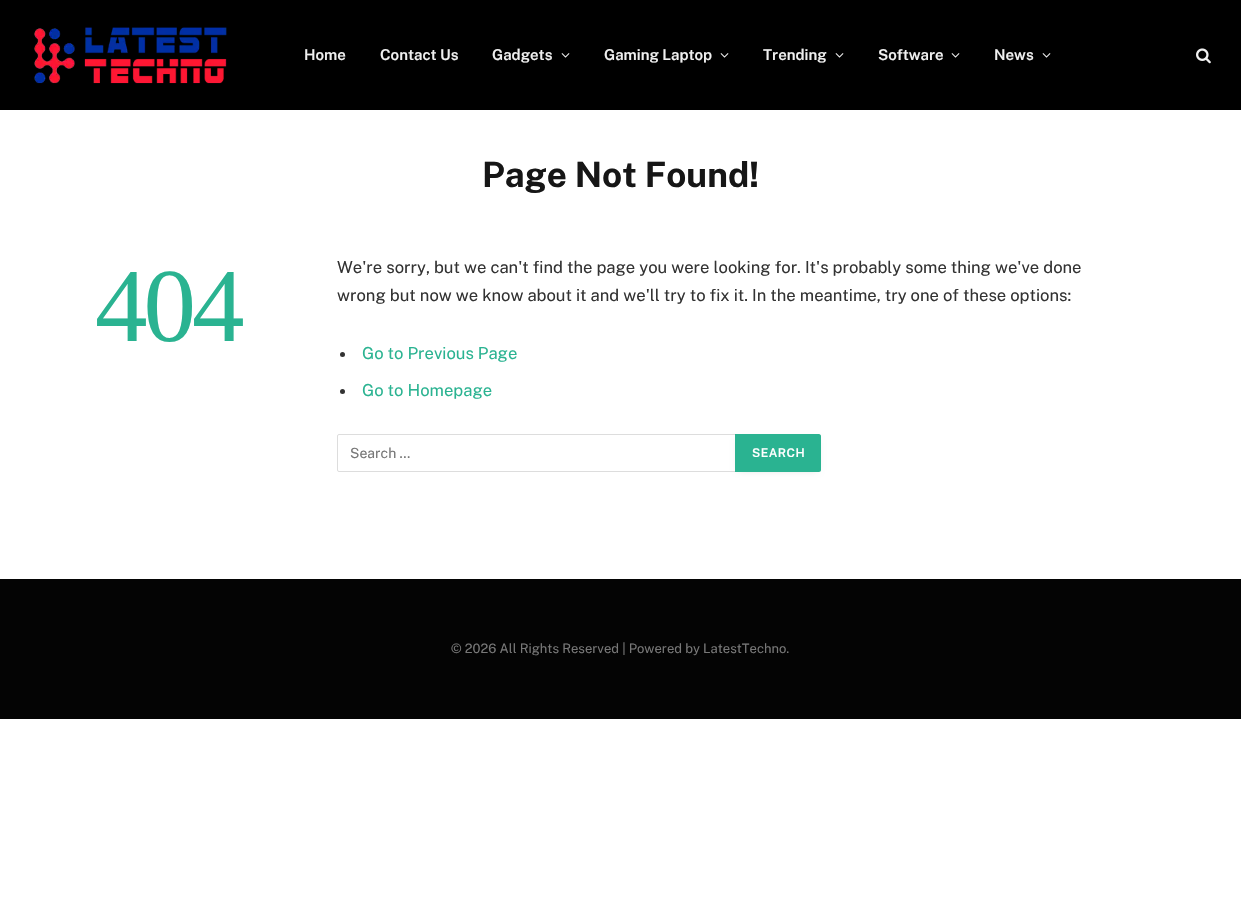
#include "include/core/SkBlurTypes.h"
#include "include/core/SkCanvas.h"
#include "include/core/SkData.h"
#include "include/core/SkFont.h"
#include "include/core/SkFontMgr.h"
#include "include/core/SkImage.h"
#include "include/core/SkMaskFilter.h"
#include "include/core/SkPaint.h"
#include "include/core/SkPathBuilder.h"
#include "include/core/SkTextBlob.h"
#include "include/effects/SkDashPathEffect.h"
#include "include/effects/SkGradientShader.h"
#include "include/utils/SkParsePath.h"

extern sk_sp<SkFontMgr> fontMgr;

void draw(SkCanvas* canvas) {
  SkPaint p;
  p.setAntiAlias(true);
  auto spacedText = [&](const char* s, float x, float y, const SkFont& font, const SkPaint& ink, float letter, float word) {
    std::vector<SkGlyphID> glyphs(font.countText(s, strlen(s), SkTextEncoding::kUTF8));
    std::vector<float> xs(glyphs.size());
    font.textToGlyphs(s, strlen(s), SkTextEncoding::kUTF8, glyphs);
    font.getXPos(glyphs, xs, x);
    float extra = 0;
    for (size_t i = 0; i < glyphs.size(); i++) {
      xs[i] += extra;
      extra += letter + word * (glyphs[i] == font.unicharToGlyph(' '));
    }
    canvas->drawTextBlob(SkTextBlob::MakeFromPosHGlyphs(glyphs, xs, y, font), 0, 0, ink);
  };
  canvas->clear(SK_ColorWHITE);
  p.setColor(SK_ColorBLACK);
  canvas->drawRect(SkRect::MakeLTRB(0, 0, 1241, 110), p);
  canvas->drawImageRect(SkImages::DeferredFromEncodedData(SkData::MakeFromFileName("images/1.png")), SkRect::MakeLTRB(34, 27, 227, 84), SkSamplingOptions());
  canvas->drawImageRect(SkImages::DeferredFromEncodedData(SkData::MakeFromFileName("images/2.png")), SkRect::MakeLTRB(561, 53, 570, 58), SkSamplingOptions());
  canvas->drawImageRect(SkImages::DeferredFromEncodedData(SkData::MakeFromFileName("images/2.png")), SkRect::MakeLTRB(720, 53, 729, 58), SkSamplingOptions());
  canvas->drawImageRect(SkImages::DeferredFromEncodedData(SkData::MakeFromFileName("images/2.png")), SkRect::MakeLTRB(835, 53, 844, 58), SkSamplingOptions());
  canvas->drawImageRect(SkImages::DeferredFromEncodedData(SkData::MakeFromFileName("images/2.png")), SkRect::MakeLTRB(951, 53, 960, 58), SkSamplingOptions());
  canvas->drawImageRect(SkImages::DeferredFromEncodedData(SkData::MakeFromFileName("images/2.png")), SkRect::MakeLTRB(1042, 53, 1051, 58), SkSamplingOptions());
  canvas->drawImageRect(SkImages::DeferredFromEncodedData(SkData::MakeFromFileName("images/3.png")), SkRect::MakeLTRB(1196, 48, 1211, 64), SkSamplingOptions());
  p.setColor(SkColorSetRGB(51, 51, 51));
  canvas->drawCircle(342.5f, 354.5f, 2.5f, p);
  canvas->drawCircle(342.5f, 391.5f, 2.5f, p);
  p.setStyle(SkPaint::kStroke_Style);
  p.setStrokeWidth(1);
  p.setColor(SkColorSetRGB(221, 221, 221));
  canvas->drawRoundRect(SkRect::MakeLTRB(337.5f, 434.5f, 736.5f, 471.5f), 1.5f, 1.5f, p);
  p.setStyle(SkPaint::kFill_Style);
  p.setColor(SkColorSetARGB(41, 0, 0, 0));
  p.setMaskFilter(SkMaskFilter::MakeBlur(kNormal_SkBlurStyle, 3.5f));
  canvas->drawRect(SkRect::MakeLTRB(739, 440, 817, 470), p);
  p.setMaskFilter(nullptr);
  p.setColor(SkColorSetRGB(42, 179, 145));
  canvas->drawPath(SkPathBuilder().moveTo(735, 434).lineTo(819, 434).cubicTo(820, 434, 821, 435, 821, 436).lineTo(821, 470).cubicTo(821, 471, 820, 472, 819, 472).lineTo(735, 472).close().detach(), p);
  p.setColor(SkColorSetRGB(4, 4, 4));
  canvas->drawRect(SkRect::MakeLTRB(0, 579, 1241, 719), p);
  SkFont font1(fontMgr->matchFamilyStyle("Public Sans", SkFontStyle(600, SkFontStyle::kNormal_Width, SkFontStyle::kUpright_Slant)), 15);
  font1.setSubpixel(true);
  p.setColor(SkColorSetRGB(240, 240, 240));
  canvas->drawString("Home", 304, 60, font1, p);
  canvas->drawString("Contact Us", 380, 60, font1, p);
  canvas->drawString("Gadgets", 492, 60, font1, p);
  canvas->drawString("Gaming Laptop", 604, 60, font1, p);
  canvas->drawString("Trending", 763, 60, font1, p);
  canvas->drawString("Software", 878, 60, font1, p);
  canvas->drawString("News", 994, 60, font1, p);
  SkFont font2(fontMgr->matchFamilyStyle("Public Sans", SkFontStyle::Bold()), 35);
  font2.setSubpixel(true);
  p.setColor(SkColorSetRGB(22, 22, 22));
  canvas->drawString("Page Not Found!", 482, 187, font2, p);
  SkFont font3(fontMgr->matchFamilyStyle("Liberation Serif", SkFontStyle::Normal()), 105);
  font3.setSubpixel(true);
  p.setColor(SkColorSetRGB(42, 179, 145));
  spacedText("404", 95, 341, font3, p, -4, 0);
  SkFont font4(fontMgr->matchFamilyStyle("Public Sans", SkFontStyle::Normal()), 16.6f);
  font4.setSubpixel(true);
  p.setColor(SkColorSetRGB(51, 51, 51));
  canvas->drawString("We're sorry, but we can't find the page you were looking for. It's probably some thing we've done", 337, 273, font4, p);
  canvas->drawString("wrong but now we know about it and we'll try to fix it. In the meantime, try one of these options:", 337, 301, font4, p);
  p.setColor(SkColorSetRGB(42, 179, 145));
  canvas->drawString("Go to Previous Page", 362, 359, font4, p);
  canvas->drawString("Go to Homepage", 362, 396, font4, p);
  SkFont font5(fontMgr->matchFamilyStyle("Public Sans", SkFontStyle::Normal()), 14);
  font5.setSubpixel(true);
  p.setColor(SkColorSetRGB(119, 119, 119));
  canvas->drawString("Search …", 350, 458, font5, p);
  SkFont font6(fontMgr->matchFamilyStyle("Public Sans", SkFontStyle(600, SkFontStyle::kNormal_Width, SkFontStyle::kUpright_Slant)), 12);
  font6.setSubpixel(true);
  p.setColor(SK_ColorWHITE);
  spacedText("SEARCH", 752, 457, font6, p, 0.5f, 0);
  SkFont font7(fontMgr->matchFamilyStyle("Public Sans", SkFontStyle::Normal()), 13);
  font7.setSubpixel(true);
  p.setColor(SkColorSetRGB(119, 119, 119));
  canvas->drawString("© 2026 All Rights Reserved | Powered by LatestTechno.", 451, 653, font7, p);
}
